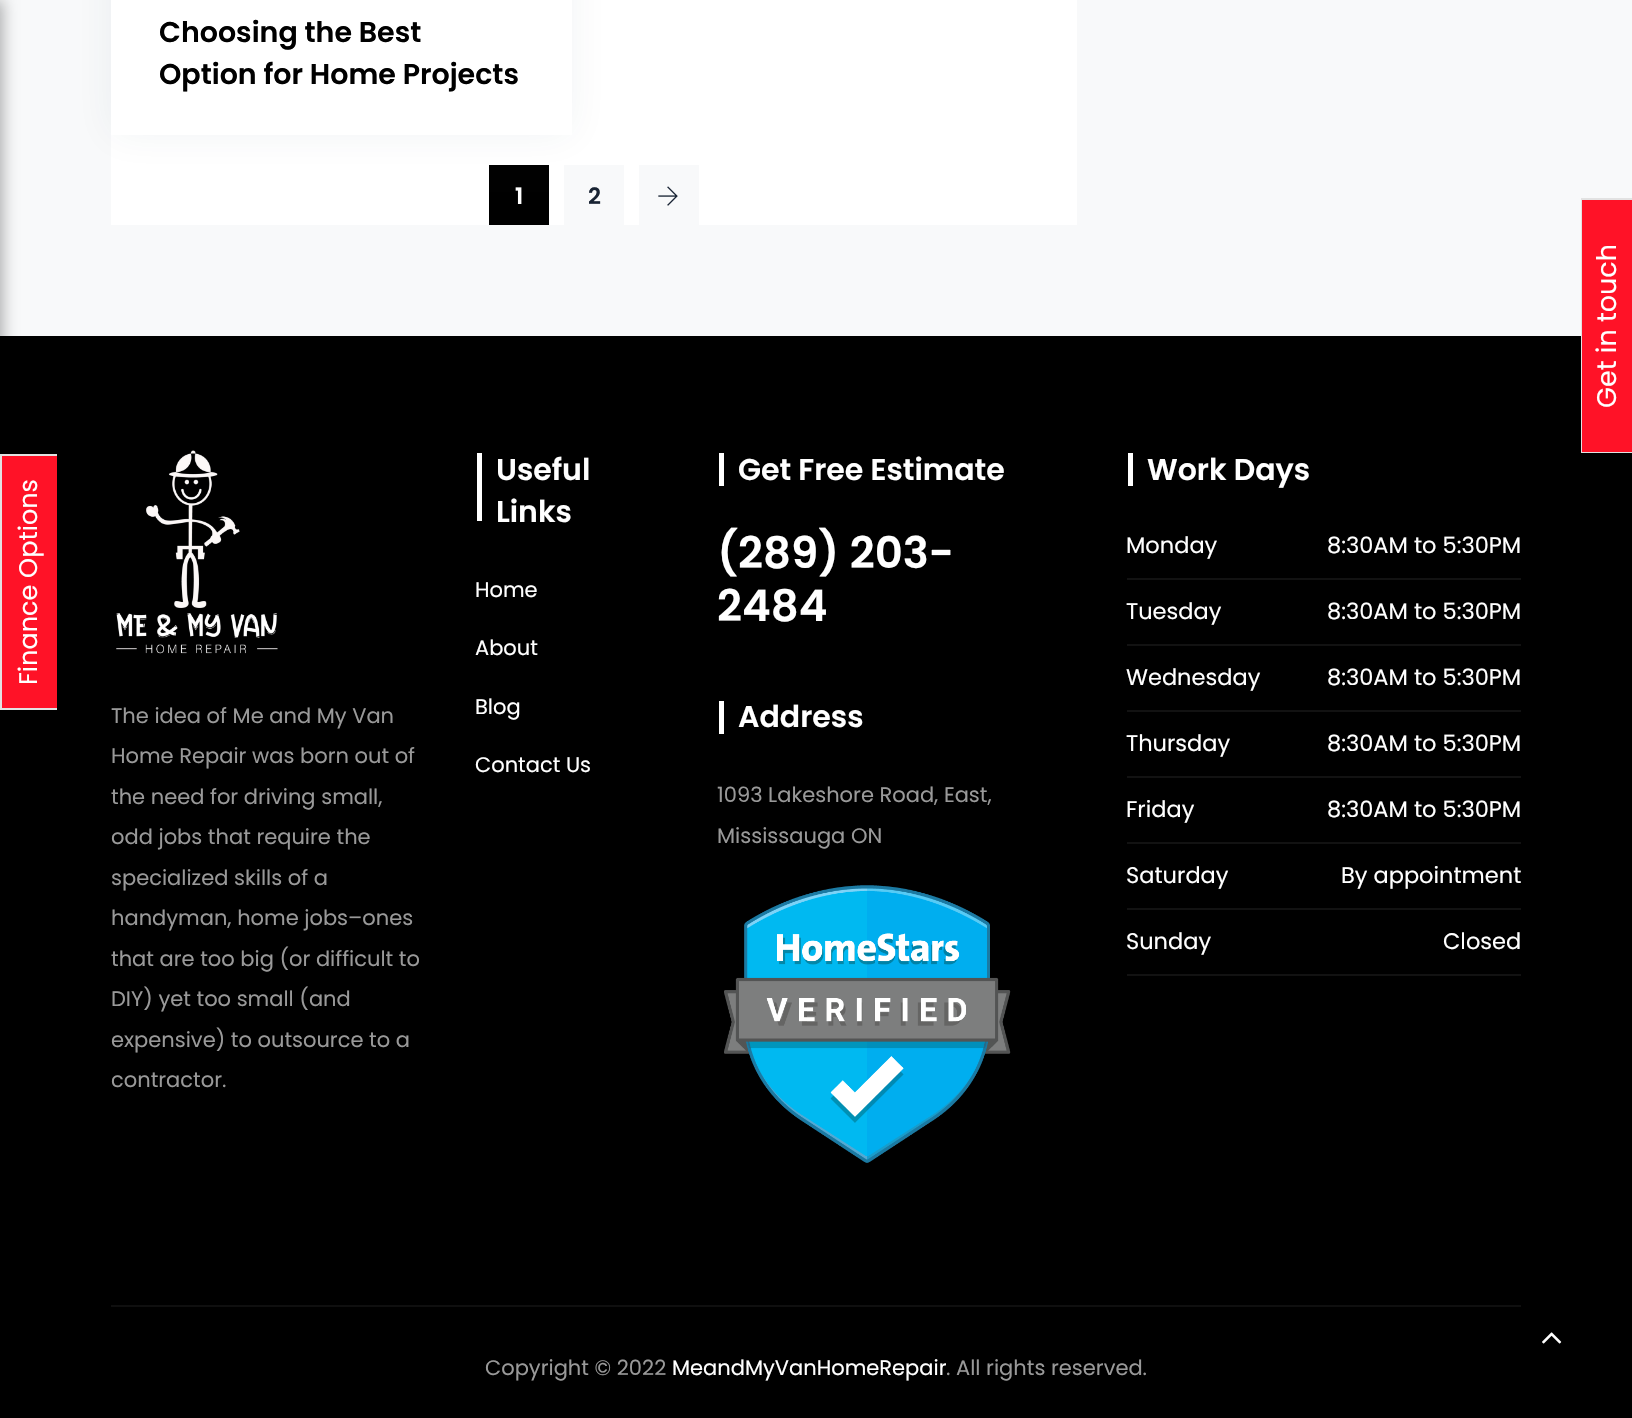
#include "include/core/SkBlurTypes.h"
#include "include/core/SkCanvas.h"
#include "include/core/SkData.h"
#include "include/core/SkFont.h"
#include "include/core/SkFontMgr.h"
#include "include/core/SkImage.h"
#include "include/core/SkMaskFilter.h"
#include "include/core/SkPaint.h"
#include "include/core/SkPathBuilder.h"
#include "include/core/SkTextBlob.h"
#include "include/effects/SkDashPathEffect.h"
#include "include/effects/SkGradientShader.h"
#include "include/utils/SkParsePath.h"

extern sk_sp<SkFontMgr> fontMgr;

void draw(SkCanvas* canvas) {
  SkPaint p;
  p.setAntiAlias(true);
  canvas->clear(SK_ColorBLACK);
  p.setColor(SkColorSetRGB(248, 249, 250));
  canvas->drawRect(SkRect::MakeLTRB(0, 0, 1632, 336), p);
  p.setColor(SK_ColorWHITE);
  canvas->drawRect(SkRect::MakeLTRB(111, 0, 1077, 225), p);
  p.setColor(SK_ColorBLACK);
  canvas->drawRect(SkRect::MakeLTRB(489, 165, 549, 225), p);
  p.setColor(SkColorSetRGB(248, 249, 250));
  canvas->drawRect(SkRect::MakeLTRB(564, 165, 624, 225), p);
  p.setColor(SkColorSetARGB(15, 41, 61, 88));
  p.setMaskFilter(SkMaskFilter::MakeBlur(kNormal_SkBlurStyle, 19));
  canvas->drawRect(SkRect::MakeLTRB(111, -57, 572, 135), p);
  p.setMaskFilter(nullptr);
  p.setColor(SK_ColorWHITE);
  canvas->drawRect(SkRect::MakeLTRB(111, 0, 572, 135), p);
  p.setColor(SkColorSetRGB(248, 249, 250));
  canvas->drawRect(SkRect::MakeLTRB(639, 165, 699, 225), p);
  canvas->drawImageRect(SkImages::DeferredFromEncodedData(SkData::MakeFromFileName("images/1.png")), SkRect::MakeLTRB(658, 186, 678, 206), SkSamplingOptions());
  p.setColor(SkColorSetARGB(77, 0, 0, 0));
  p.setMaskFilter(SkMaskFilter::MakeBlur(kNormal_SkBlurStyle, 7.5f));
  canvas->drawRect(SkRect::MakeLTRB(-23, 0, 3, 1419), p);
  p.setMaskFilter(nullptr);
  p.setColor(SkColorSetRGB(255, 18, 39));
  canvas->drawRect(SkRect::MakeLTRB(2, 456, 57, 708), p);
  p.setColor(SkColorSetRGB(226, 226, 226));
  canvas->drawRect(SkRect::MakeLTRB(0, 454, 2, 710), p);
  canvas->drawRect(SkRect::MakeLTRB(0, 454, 57, 456), p);
  canvas->drawRect(SkRect::MakeLTRB(0, 708, 57, 710), p);
  p.setColor(SkColorSetRGB(15, 15, 15));
  canvas->drawRect(SkRect::MakeLTRB(111, 1305, 1521, 1307), p);
  canvas->drawImageRect(SkImages::DeferredFromEncodedData(SkData::MakeFromFileName("images/2.png")), SkRect::MakeLTRB(116, 450, 278, 654), SkSamplingOptions());
  p.setColor(SK_ColorWHITE);
  canvas->drawRect(SkRect::MakeLTRB(477, 453, 482, 521), p);
  canvas->drawRect(SkRect::MakeLTRB(719, 453, 724, 486), p);
  canvas->drawRect(SkRect::MakeLTRB(719, 701, 724, 734), p);
  canvas->drawImageRect(SkImages::DeferredFromEncodedData(SkData::MakeFromFileName("images/3.png")), SkRect::MakeLTRB(724, 885, 1011, 1163), SkSamplingOptions());
  canvas->drawRect(SkRect::MakeLTRB(1128, 453, 1133, 486), p);
  p.setColor(SkColorSetRGB(18, 18, 18));
  canvas->drawRect(SkRect::MakeLTRB(1127, 578, 1521, 580), p);
  canvas->drawRect(SkRect::MakeLTRB(1127, 644, 1521, 646), p);
  canvas->drawRect(SkRect::MakeLTRB(1127, 710, 1521, 712), p);
  canvas->drawRect(SkRect::MakeLTRB(1127, 776, 1521, 778), p);
  canvas->drawRect(SkRect::MakeLTRB(1127, 842, 1521, 844), p);
  canvas->drawRect(SkRect::MakeLTRB(1127, 908, 1521, 910), p);
  canvas->drawRect(SkRect::MakeLTRB(1127, 974, 1521, 976), p);
  p.setColor(SkColorSetRGB(255, 18, 39));
  canvas->drawRect(SkRect::MakeLTRB(1582, 200, 1632, 452), p);
  p.setColor(SkColorSetRGB(226, 226, 226));
  canvas->drawRect(SkRect::MakeLTRB(1581, 198, 1582, 453), p);
  canvas->drawRect(SkRect::MakeLTRB(1581, 198, 1632, 200), p);
  canvas->drawRect(SkRect::MakeLTRB(1581, 452, 1632, 453), p);
  canvas->drawImageRect(SkImages::DeferredFromEncodedData(SkData::MakeFromFileName("images/4.png")), SkRect::MakeLTRB(1542, 1332, 1562, 1344), SkSamplingOptions());
  SkFont font1(fontMgr->matchFamilyStyle("Poppins", SkFontStyle(600, SkFontStyle::kNormal_Width, SkFontStyle::kUpright_Slant)), 28.5f);
  font1.setSubpixel(true);
  p.setColor(SK_ColorBLACK);
  canvas->drawString("Choosing the Best", 159, 42, font1, p);
  canvas->drawString("Option for Home Projects", 159, 84, font1, p);
  SkFont font2(fontMgr->matchFamilyStyle("Poppins", SkFontStyle(600, SkFontStyle::kNormal_Width, SkFontStyle::kUpright_Slant)), 22.5f);
  font2.setSubpixel(true);
  p.setColor(SK_ColorWHITE);
  canvas->drawString("1", 515, 204, font2, p);
  p.setColor(SkColorSetRGB(24, 35, 51));
  canvas->drawString("2", 588, 204, font2, p);
  SkFont font3(fontMgr->matchFamilyStyle("Poppins", SkFontStyle::Normal()), 25.5f);
  font3.setSubpixel(true);
  p.setColor(SK_ColorWHITE);
  canvas->save();
  canvas->rotate(-90, 37, 685);
  canvas->drawString("Finance Options", 37, 685, font3, p);
  canvas->restore();
  SkFont font4(fontMgr->matchFamilyStyle("Poppins", SkFontStyle::Normal()), 21);
  font4.setSubpixel(true);
  p.setColor(SkColorSetRGB(153, 153, 153));
  canvas->drawString("The idea of Me and My Van", 111, 723, font4, p);
  canvas->drawString("Home Repair was born out of", 111, 763, font4, p);
  canvas->drawString("the need for driving small,", 111, 804, font4, p);
  canvas->drawString("odd jobs that require the", 111, 844, font4, p);
  canvas->drawString("specialized skills of a", 111, 885, font4, p);
  canvas->drawString("handyman, home jobs–ones", 111, 925, font4, p);
  canvas->drawString("that are too big (or difficult to", 111, 966, font4, p);
  canvas->drawString("DIY) yet too small (and", 111, 1006, font4, p);
  canvas->drawString("expensive) to outsource to a", 111, 1047, font4, p);
  canvas->drawString("contractor.", 111, 1087, font4, p);
  SkFont font5(fontMgr->matchFamilyStyle("Poppins", SkFontStyle(600, SkFontStyle::kNormal_Width, SkFontStyle::kUpright_Slant)), 30);
  font5.setSubpixel(true);
  p.setColor(SK_ColorWHITE);
  canvas->drawString("Useful", 496, 480, font5, p);
  canvas->drawString("Links", 496, 522, font5, p);
  canvas->drawString("Home", 475, 597, font4, p);
  canvas->drawString("About", 475, 655, font4, p);
  canvas->drawString("Blog", 475, 714, font4, p);
  canvas->drawString("Contact Us", 475, 772, font4, p);
  canvas->drawString("Get Free Estimate", 738, 480, font5, p);
  SkFont font6(fontMgr->matchFamilyStyle("Poppins", SkFontStyle(600, SkFontStyle::kNormal_Width, SkFontStyle::kUpright_Slant)), 43.5f);
  font6.setSubpixel(true);
  canvas->drawString("(289) 203-", 717, 568, font6, p);
  canvas->drawString("2484", 717, 621, font6, p);
  canvas->drawString("Address", 738, 727, font5, p);
  p.setColor(SkColorSetRGB(153, 153, 153));
  canvas->drawString("1093 Lakeshore Road, East,", 717, 802, font4, p);
  canvas->drawString("Mississauga ON", 717, 843, font4, p);
  p.setColor(SK_ColorWHITE);
  canvas->drawString("Work Days", 1147, 480, font5, p);
  SkFont font7(fontMgr->matchFamilyStyle("Poppins", SkFontStyle::Normal()), 22.5f);
  font7.setSubpixel(true);
  canvas->drawString("Monday", 1126, 553, font7, p);
  canvas->drawString("8:30AM to 5:30PM", 1327, 553, font7, p);
  canvas->drawString("Tuesday", 1126, 619, font7, p);
  canvas->drawString("8:30AM to 5:30PM", 1327, 619, font7, p);
  canvas->drawString("Wednesday", 1126, 685, font7, p);
  canvas->drawString("8:30AM to 5:30PM", 1327, 685, font7, p);
  canvas->drawString("Thursday", 1126, 751, font7, p);
  canvas->drawString("8:30AM to 5:30PM", 1327, 751, font7, p);
  canvas->drawString("Friday", 1126, 817, font7, p);
  canvas->drawString("8:30AM to 5:30PM", 1327, 817, font7, p);
  canvas->drawString("Saturday", 1126, 883, font7, p);
  canvas->drawString("By appointment", 1341, 883, font7, p);
  canvas->drawString("Sunday", 1126, 949, font7, p);
  canvas->drawString("Closed", 1443, 949, font7, p);
  p.setColor(SkColorSetRGB(153, 153, 153));
  canvas->drawString("Copyright © 2022", 485, 1375, font4, p);
  p.setColor(SK_ColorWHITE);
  canvas->drawString("MeandMyVanHomeRepair", 672, 1375, font4, p);
  p.setColor(SkColorSetRGB(153, 153, 153));
  canvas->drawString(". All rights reserved.", 946, 1375, font4, p);
  SkFont font8(fontMgr->matchFamilyStyle("Poppins", SkFontStyle::Normal()), 27);
  font8.setSubpixel(true);
  p.setColor(SK_ColorWHITE);
  canvas->save();
  canvas->rotate(-90, 1616, 408);
  canvas->drawString("Get in touch", 1616, 408, font8, p);
  canvas->restore();
}
